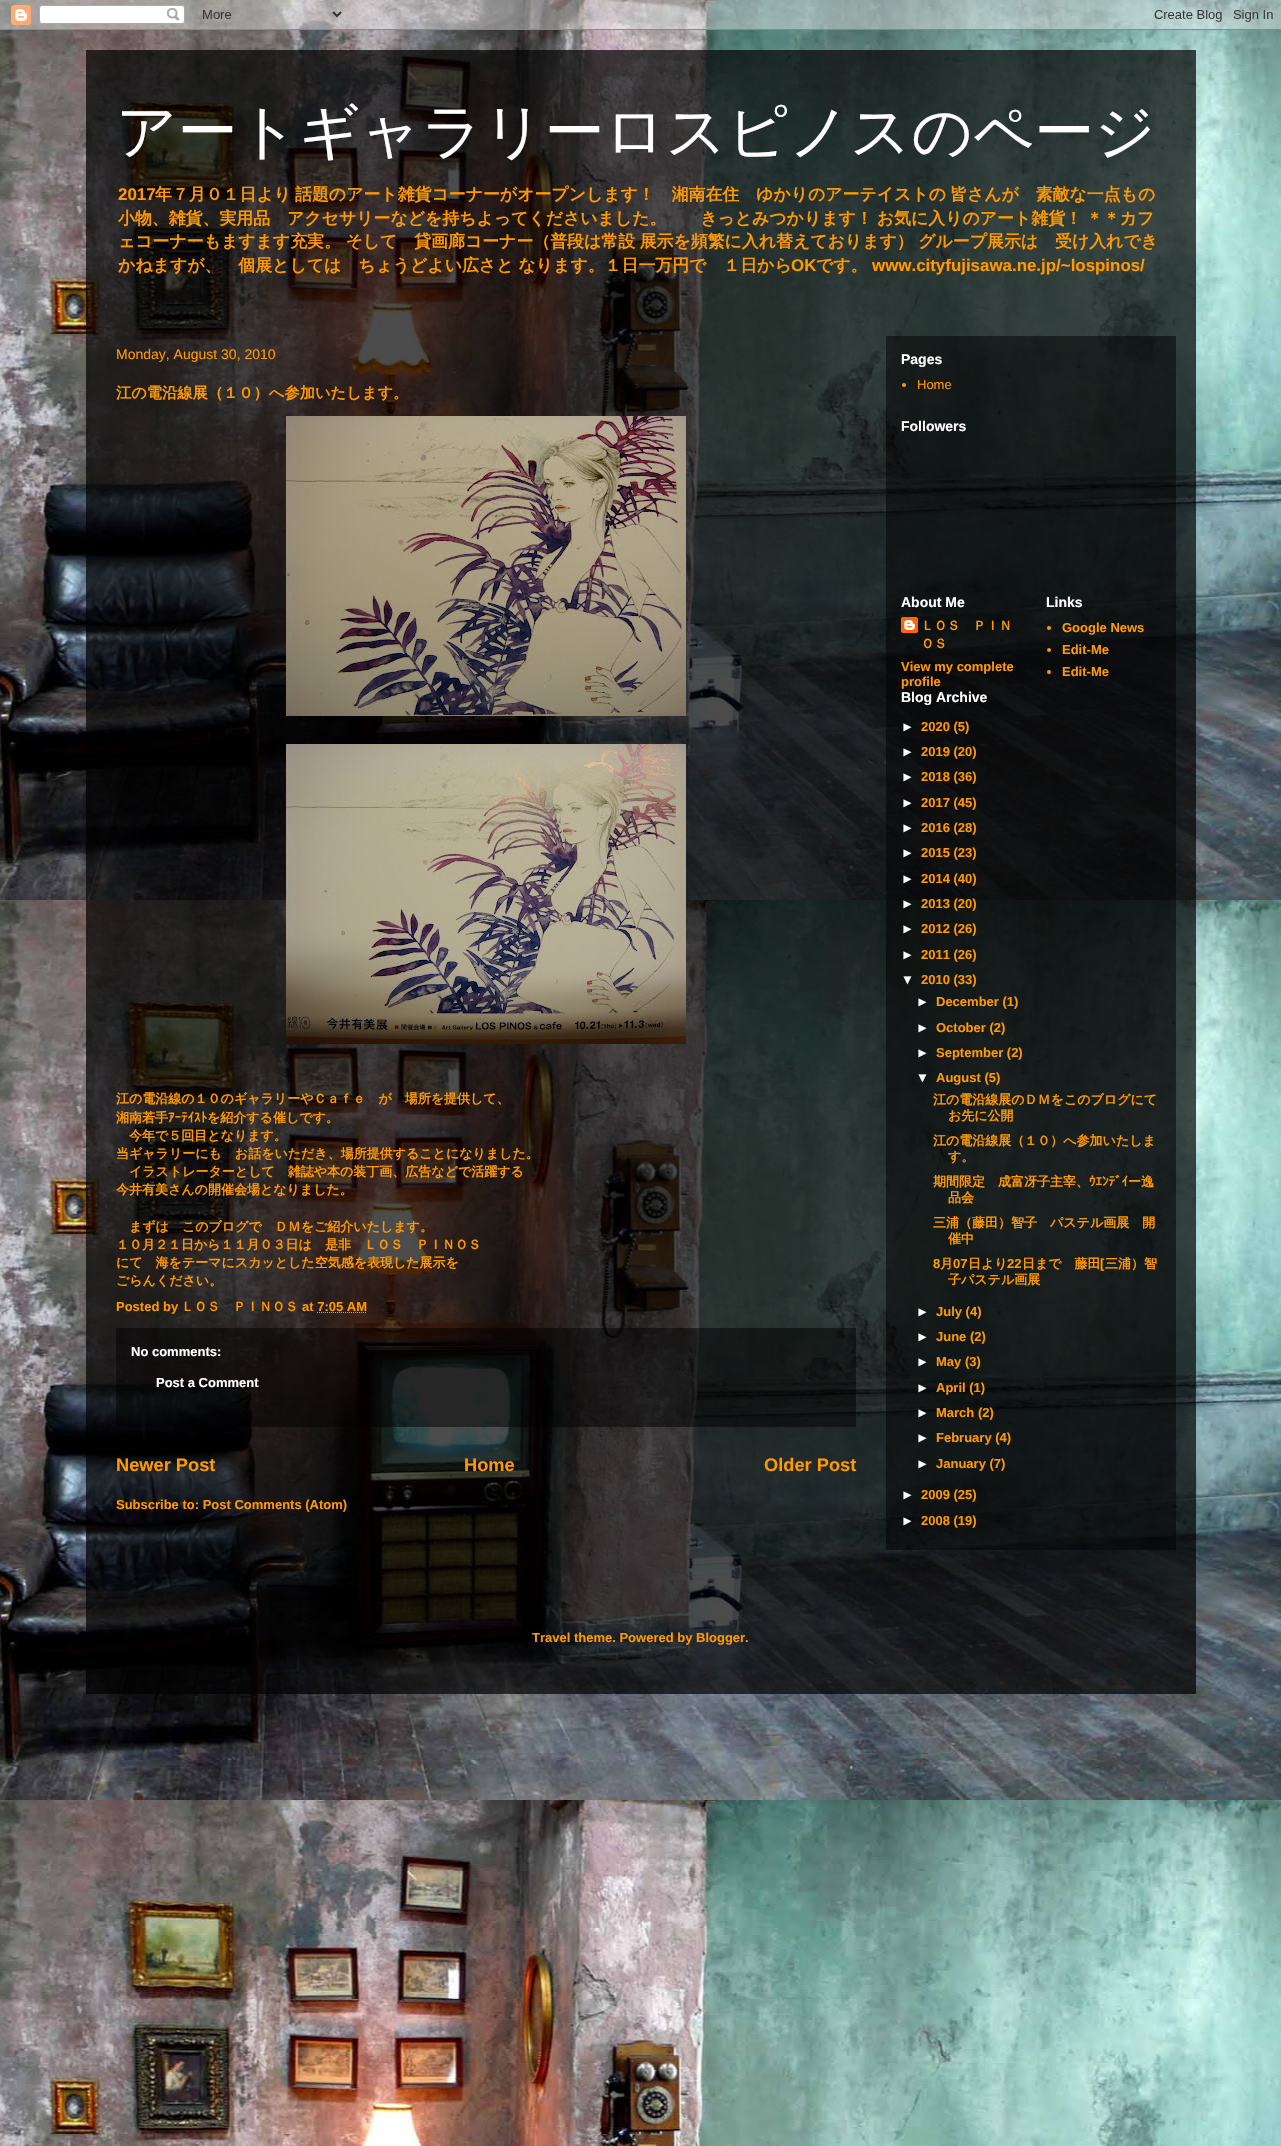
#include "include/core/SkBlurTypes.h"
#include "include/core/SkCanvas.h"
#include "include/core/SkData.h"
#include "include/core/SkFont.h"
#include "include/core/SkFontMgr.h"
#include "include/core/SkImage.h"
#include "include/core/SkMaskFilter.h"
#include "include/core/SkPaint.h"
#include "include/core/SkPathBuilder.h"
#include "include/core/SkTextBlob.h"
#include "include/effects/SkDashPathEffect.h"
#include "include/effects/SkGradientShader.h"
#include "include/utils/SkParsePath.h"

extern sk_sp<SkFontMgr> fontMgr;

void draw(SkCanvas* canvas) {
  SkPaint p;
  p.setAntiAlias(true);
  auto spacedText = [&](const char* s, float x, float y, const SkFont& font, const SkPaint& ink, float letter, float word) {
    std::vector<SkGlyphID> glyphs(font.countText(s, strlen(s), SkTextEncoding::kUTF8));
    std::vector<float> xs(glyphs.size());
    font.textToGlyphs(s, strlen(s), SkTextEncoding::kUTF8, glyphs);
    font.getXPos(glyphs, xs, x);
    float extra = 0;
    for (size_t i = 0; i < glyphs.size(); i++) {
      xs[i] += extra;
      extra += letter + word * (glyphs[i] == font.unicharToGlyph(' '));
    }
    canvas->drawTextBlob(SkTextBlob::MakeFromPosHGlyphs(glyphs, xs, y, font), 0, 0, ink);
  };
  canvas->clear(SK_ColorWHITE);
  canvas->drawImageRect(SkImages::DeferredFromEncodedData(SkData::MakeFromFileName("images/1.png")), SkRect::MakeLTRB(0, 0, 1281, 2146), SkSamplingOptions());
  canvas->drawImageRect(SkImages::DeferredFromEncodedData(SkData::MakeFromFileName("images/2.png")), SkRect::MakeLTRB(0, 0, 1281, 30), SkSamplingOptions());
  p.setColor(SkColorSetARGB(179, 0, 0, 0));
  canvas->drawRect(SkRect::MakeLTRB(86, 50, 1196, 1694), p);
  p.setColor(SkColorSetARGB(128, 0, 0, 0));
  canvas->drawRect(SkRect::MakeLTRB(886, 336, 1176, 1550), p);
  canvas->drawImageRect(SkImages::DeferredFromEncodedData(SkData::MakeFromFileName("images/3.png")), SkRect::MakeLTRB(286, 416, 686, 716), SkSamplingOptions());
  canvas->drawImageRect(SkImages::DeferredFromEncodedData(SkData::MakeFromFileName("images/4.png")), SkRect::MakeLTRB(286, 744, 686, 1044), SkSamplingOptions());
  p.setStyle(SkPaint::kStroke_Style);
  p.setStrokeWidth(1);
  p.setColor(SkColorSetRGB(255, 153, 0));
  p.setPathEffect(SkDashPathEffect::Make({{1, 1}}, 0));
  canvas->drawPath(SkPathBuilder().moveTo(317, 1312.5f).lineTo(367, 1312.5f).detach(), p);
  p.setPathEffect(nullptr);
  p.setStyle(SkPaint::kFill_Style);
  p.setColor(SkColorSetARGB(128, 0, 0, 0));
  canvas->drawRect(SkRect::MakeLTRB(116, 1328, 856, 1427), p);
  p.setColor(SkColorSetRGB(255, 153, 0));
  canvas->drawCircle(904, 385, 2, p);
  canvas->drawImageRect(SkImages::DeferredFromEncodedData(SkData::MakeFromFileName("images/5.png")), SkRect::MakeLTRB(901, 617, 918, 633), SkSamplingOptions());
  canvas->drawCircle(1049, 628, 2, p);
  canvas->drawCircle(1049, 650, 2, p);
  canvas->drawCircle(1049, 672, 2, p);
  SkFont font1(fontMgr->matchFamilyStyle("WenQuanYi Zen Hei", SkFontStyle(500, SkFontStyle::kNormal_Width, SkFontStyle::kUpright_Slant)), 60);
  font1.setSubpixel(true);
  p.setColor(SK_ColorWHITE);
  canvas->drawString("アートギャラリーロスピノスのページ", 116, 152, font1, p);
  SkFont font2(fontMgr->matchFamilyStyle("Liberation Sans", SkFontStyle::Bold()), 16.9f);
  font2.setSubpixel(true);
  p.setColor(SkColorSetRGB(255, 153, 0));
  canvas->drawString("2017", 118, 200, font2, p);
  SkFont font3(fontMgr->matchFamilyStyle("WenQuanYi Zen Hei", SkFontStyle::Bold()), 16.9f);
  font3.setSubpixel(true);
  spacedText("年７月０１日より 話題のアート雑貨コーナーがオープンします！　湘南在住　ゆかりのアーテイストの 皆さんが　素敵な一点もの", 155, 200, font3, p, 0, -1);
  spacedText("小物、雑貨、実用品　アクセサリーなどを持ちよってくださいました。　　きっとみつかります！ お気に入りのアート雑貨！ ＊＊カフ", 118, 224, font3, p, 0, -1);
  spacedText("ェコーナーもますます充実。 そして　貸画廊コーナー（普段は常設 展示を頻繁に入れ替えております） グループ展示は　受け入れでき", 118, 247, font3, p, 0, -0.5f);
  canvas->drawString("かねますが、　個展としては　ちょうどよい広さと なります。１日一万円で　１日から", 118, 271, font3, p);
  canvas->drawString("OK", 791, 271, font2, p);
  canvas->drawString("です。", 816, 271, font3, p);
  canvas->drawString("www.cityfujisawa.ne.jp/~lospinos/", 872, 271, font2, p);
  SkFont font4(fontMgr->matchFamilyStyle("Liberation Sans", SkFontStyle::Normal()), 14);
  font4.setSubpixel(true);
  canvas->drawString("Monday, August 30, 2010", 116, 359, font4, p);
  SkFont font5(fontMgr->matchFamilyStyle("WenQuanYi Zen Hei", SkFontStyle::Bold()), 15.25f);
  font5.setSubpixel(true);
  canvas->drawString("江の電沿線展（１０）へ参加いたします。", 116, 398, font5, p);
  SkFont font6(fontMgr->matchFamilyStyle("WenQuanYi Zen Hei", SkFontStyle::Bold()), 13);
  font6.setSubpixel(true);
  canvas->drawString("江の電沿線の１０のギャラリーやＣａｆｅ　が　場所を提供して、", 116, 1103, font6, p);
  canvas->drawString("湘南若手", 116, 1122, font6, p);
  SkFont font7(fontMgr->matchFamilyStyle("IPAGothic", SkFontStyle::Bold()), 13);
  font7.setSubpixel(true);
  canvas->drawString("ｱｰﾃｲｽﾄ", 168, 1122, font7, p);
  canvas->drawString("を紹介する催しです。", 207, 1122, font6, p);
  canvas->drawString("今年で５回目となります。", 129, 1140, font6, p);
  canvas->drawString("当ギャラリーにも　お話をいただき、場所提供することになりました。", 116, 1158, font6, p);
  canvas->drawString("イラストレーターとして　雑誌や本の装丁画、広告などで活躍する", 129, 1176, font6, p);
  canvas->drawString("今井有美さんの開催会場となりました。", 116, 1194, font6, p);
  canvas->drawString("まずは　このブログで　ＤＭをご紹介いたします。", 129, 1231, font6, p);
  canvas->drawString("１０月２１日から１１月０３日は　是非　ＬＯＳ　ＰＩＮＯＳ", 116, 1249, font6, p);
  canvas->drawString("にて　海をテーマにスカッとした空気感を表現した展示を", 116, 1267, font6, p);
  canvas->drawString("ごらんください。", 116, 1285, font6, p);
  SkFont font8(fontMgr->matchFamilyStyle("Liberation Sans", SkFontStyle::Bold()), 13);
  font8.setSubpixel(true);
  canvas->drawString("Posted by", 116, 1311, font8, p);
  canvas->drawString("ＬＯＳ　ＰＩＮＯＳ", 181, 1311, font6, p);
  canvas->drawString("at 7:05 AM", 302, 1311, font8, p);
  p.setColor(SK_ColorWHITE);
  canvas->drawString("No comments:", 131, 1356, font8, p);
  canvas->drawString("Post a Comment", 156, 1387, font8, p);
  SkFont font9(fontMgr->matchFamilyStyle("Liberation Sans", SkFontStyle::Bold()), 18.25f);
  font9.setSubpixel(true);
  p.setColor(SkColorSetRGB(255, 153, 0));
  canvas->drawString("Newer Post", 116, 1471, font9, p);
  canvas->drawString("Home", 464, 1471, font9, p);
  canvas->drawString("Older Post", 764, 1471, font9, p);
  canvas->drawString("Subscribe to: Post Comments (Atom)", 116, 1509, font8, p);
  SkFont font10(fontMgr->matchFamilyStyle("Liberation Sans", SkFontStyle::Bold()), 14);
  font10.setSubpixel(true);
  p.setColor(SK_ColorWHITE);
  canvas->drawString("Pages", 901, 364, font10, p);
  SkFont font11(fontMgr->matchFamilyStyle("Liberation Sans", SkFontStyle::Normal()), 13);
  font11.setSubpixel(true);
  p.setColor(SkColorSetRGB(255, 153, 0));
  canvas->drawString("Home", 917, 389, font11, p);
  p.setColor(SK_ColorWHITE);
  canvas->drawString("Followers", 901, 431, font10, p);
  canvas->drawString("About Me", 901, 607, font10, p);
  p.setColor(SkColorSetRGB(255, 153, 0));
  canvas->drawString("ＬＯＳ　ＰＩＮ", 921, 630, font6, p);
  canvas->drawString("ＯＳ", 921, 648, font6, p);
  canvas->drawString("View my complete", 901, 671, font8, p);
  canvas->drawString("profile", 901, 686, font8, p);
  p.setColor(SK_ColorWHITE);
  canvas->drawString("Links", 1046, 607, font10, p);
  p.setColor(SkColorSetRGB(255, 153, 0));
  canvas->drawString("Google News", 1062, 632, font8, p);
  canvas->drawString("Edit-Me", 1062, 654, font8, p);
  canvas->drawString("Edit-Me", 1062, 676, font8, p);
  p.setColor(SK_ColorWHITE);
  canvas->drawString("Blog Archive", 901, 702, font10, p);
  canvas->drawString("►", 901, 731, font8, p);
  p.setColor(SkColorSetRGB(255, 153, 0));
  canvas->drawString("2020 (5)", 921, 731, font8, p);
  p.setColor(SK_ColorWHITE);
  canvas->drawString("►", 901, 756, font8, p);
  p.setColor(SkColorSetRGB(255, 153, 0));
  canvas->drawString("2019 (20)", 921, 756, font8, p);
  p.setColor(SK_ColorWHITE);
  canvas->drawString("►", 901, 781, font8, p);
  p.setColor(SkColorSetRGB(255, 153, 0));
  canvas->drawString("2018 (36)", 921, 781, font8, p);
  p.setColor(SK_ColorWHITE);
  canvas->drawString("►", 901, 807, font8, p);
  p.setColor(SkColorSetRGB(255, 153, 0));
  canvas->drawString("2017 (45)", 921, 807, font8, p);
  p.setColor(SK_ColorWHITE);
  canvas->drawString("►", 901, 832, font8, p);
  p.setColor(SkColorSetRGB(255, 153, 0));
  canvas->drawString("2016 (28)", 921, 832, font8, p);
  p.setColor(SK_ColorWHITE);
  canvas->drawString("►", 901, 857, font8, p);
  p.setColor(SkColorSetRGB(255, 153, 0));
  canvas->drawString("2015 (23)", 921, 857, font8, p);
  p.setColor(SK_ColorWHITE);
  canvas->drawString("►", 901, 883, font8, p);
  p.setColor(SkColorSetRGB(255, 153, 0));
  canvas->drawString("2014 (40)", 921, 883, font8, p);
  p.setColor(SK_ColorWHITE);
  canvas->drawString("►", 901, 908, font8, p);
  p.setColor(SkColorSetRGB(255, 153, 0));
  canvas->drawString("2013 (20)", 921, 908, font8, p);
  p.setColor(SK_ColorWHITE);
  canvas->drawString("►", 901, 933, font8, p);
  p.setColor(SkColorSetRGB(255, 153, 0));
  canvas->drawString("2012 (26)", 921, 933, font8, p);
  p.setColor(SK_ColorWHITE);
  canvas->drawString("►", 901, 959, font8, p);
  p.setColor(SkColorSetRGB(255, 153, 0));
  canvas->drawString("2011 (26)", 921, 959, font8, p);
  p.setColor(SK_ColorWHITE);
  canvas->drawString("▼", 901, 984, font8, p);
  p.setColor(SkColorSetRGB(255, 153, 0));
  canvas->drawString("2010 (33)", 921, 984, font8, p);
  p.setColor(SK_ColorWHITE);
  canvas->drawString("►", 916, 1006, font8, p);
  p.setColor(SkColorSetRGB(255, 153, 0));
  canvas->drawString("December (1)", 936, 1006, font8, p);
  p.setColor(SK_ColorWHITE);
  canvas->drawString("►", 916, 1032, font8, p);
  p.setColor(SkColorSetRGB(255, 153, 0));
  canvas->drawString("October (2)", 936, 1032, font8, p);
  p.setColor(SK_ColorWHITE);
  canvas->drawString("►", 916, 1057, font8, p);
  p.setColor(SkColorSetRGB(255, 153, 0));
  canvas->drawString("September (2)", 936, 1057, font8, p);
  p.setColor(SK_ColorWHITE);
  canvas->drawString("▼", 916, 1082, font8, p);
  p.setColor(SkColorSetRGB(255, 153, 0));
  canvas->drawString("August (5)", 936, 1082, font8, p);
  canvas->drawString("江の電沿線展のＤＭをこのブログにて", 933, 1104, font6, p);
  canvas->drawString("お先に公開", 948, 1120, font6, p);
  canvas->drawString("江の電沿線展（１０）へ参加いたしま", 933, 1145, font6, p);
  canvas->drawString("す。", 948, 1161, font6, p);
  canvas->drawString("期間限定　成富冴子主宰、", 933, 1186, font6, p);
  canvas->drawString("ｳｴﾝﾃﾞｲ", 1089, 1186, font7, p);
  canvas->drawString("ー逸", 1128, 1186, font6, p);
  canvas->drawString("品会", 948, 1202, font6, p);
  canvas->drawString("三浦（藤田）智子　パステル画展　開", 933, 1227, font6, p);
  canvas->drawString("催中", 948, 1243, font6, p);
  canvas->drawString("8", 933, 1268, font8, p);
  canvas->drawString("月", 940, 1268, font6, p);
  canvas->drawString("07", 953, 1268, font8, p);
  canvas->drawString("日より", 968, 1268, font6, p);
  canvas->drawString("22", 1007, 1268, font8, p);
  canvas->drawString("日まで　藤田", 1022, 1268, font6, p);
  canvas->drawString("[", 1100, 1268, font8, p);
  canvas->drawString("三浦）智", 1105, 1268, font6, p);
  canvas->drawString("子パステル画展", 948, 1284, font6, p);
  p.setColor(SK_ColorWHITE);
  canvas->drawString("►", 916, 1316, font8, p);
  p.setColor(SkColorSetRGB(255, 153, 0));
  canvas->drawString("July (4)", 936, 1316, font8, p);
  p.setColor(SK_ColorWHITE);
  canvas->drawString("►", 916, 1341, font8, p);
  p.setColor(SkColorSetRGB(255, 153, 0));
  canvas->drawString("June (2)", 936, 1341, font8, p);
  p.setColor(SK_ColorWHITE);
  canvas->drawString("►", 916, 1366, font8, p);
  p.setColor(SkColorSetRGB(255, 153, 0));
  canvas->drawString("May (3)", 936, 1366, font8, p);
  p.setColor(SK_ColorWHITE);
  canvas->drawString("►", 916, 1392, font8, p);
  p.setColor(SkColorSetRGB(255, 153, 0));
  canvas->drawString("April (1)", 936, 1392, font8, p);
  p.setColor(SK_ColorWHITE);
  canvas->drawString("►", 916, 1417, font8, p);
  p.setColor(SkColorSetRGB(255, 153, 0));
  canvas->drawString("March (2)", 936, 1417, font8, p);
  p.setColor(SK_ColorWHITE);
  canvas->drawString("►", 916, 1442, font8, p);
  p.setColor(SkColorSetRGB(255, 153, 0));
  canvas->drawString("February (4)", 936, 1442, font8, p);
  p.setColor(SK_ColorWHITE);
  canvas->drawString("►", 916, 1468, font8, p);
  p.setColor(SkColorSetRGB(255, 153, 0));
  canvas->drawString("January (7)", 936, 1468, font8, p);
  p.setColor(SK_ColorWHITE);
  canvas->drawString("►", 901, 1499, font8, p);
  p.setColor(SkColorSetRGB(255, 153, 0));
  canvas->drawString("2009 (25)", 921, 1499, font8, p);
  p.setColor(SK_ColorWHITE);
  canvas->drawString("►", 901, 1525, font8, p);
  p.setColor(SkColorSetRGB(255, 153, 0));
  canvas->drawString("2008 (19)", 921, 1525, font8, p);
  canvas->drawString("Travel theme. Powered by Blogger.", 532, 1642, font8, p);
}
